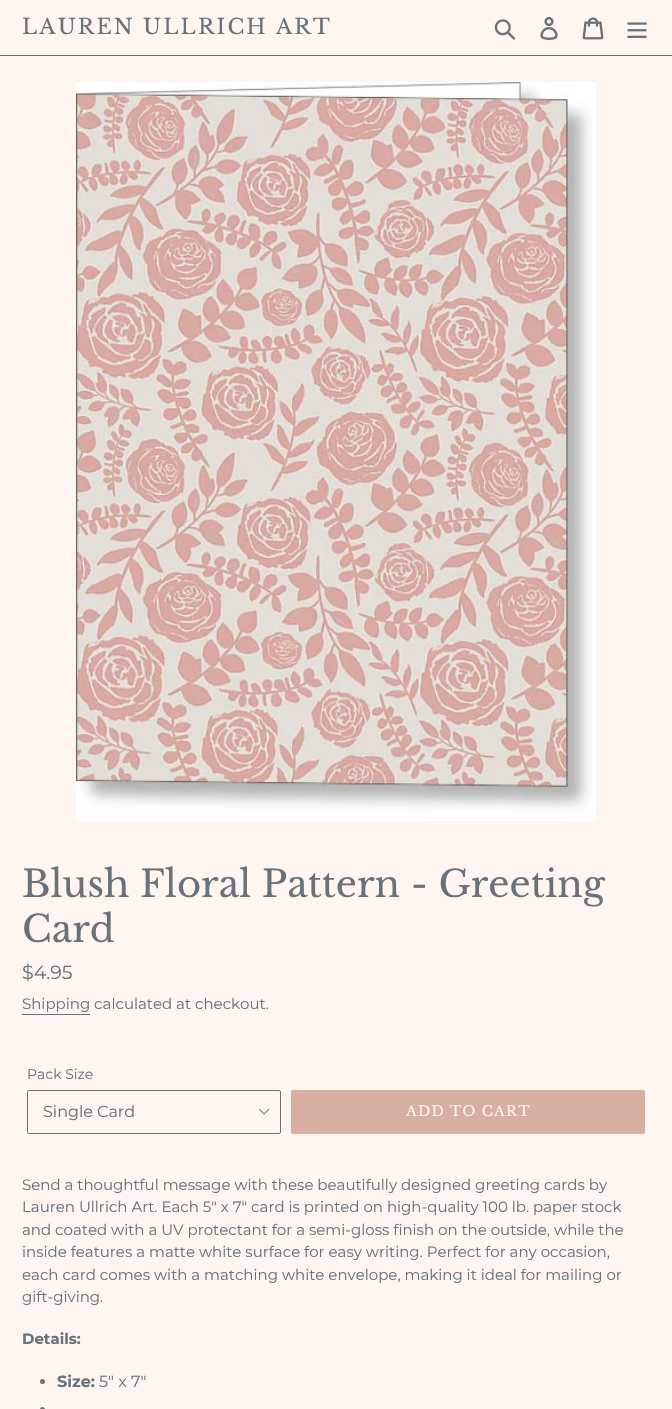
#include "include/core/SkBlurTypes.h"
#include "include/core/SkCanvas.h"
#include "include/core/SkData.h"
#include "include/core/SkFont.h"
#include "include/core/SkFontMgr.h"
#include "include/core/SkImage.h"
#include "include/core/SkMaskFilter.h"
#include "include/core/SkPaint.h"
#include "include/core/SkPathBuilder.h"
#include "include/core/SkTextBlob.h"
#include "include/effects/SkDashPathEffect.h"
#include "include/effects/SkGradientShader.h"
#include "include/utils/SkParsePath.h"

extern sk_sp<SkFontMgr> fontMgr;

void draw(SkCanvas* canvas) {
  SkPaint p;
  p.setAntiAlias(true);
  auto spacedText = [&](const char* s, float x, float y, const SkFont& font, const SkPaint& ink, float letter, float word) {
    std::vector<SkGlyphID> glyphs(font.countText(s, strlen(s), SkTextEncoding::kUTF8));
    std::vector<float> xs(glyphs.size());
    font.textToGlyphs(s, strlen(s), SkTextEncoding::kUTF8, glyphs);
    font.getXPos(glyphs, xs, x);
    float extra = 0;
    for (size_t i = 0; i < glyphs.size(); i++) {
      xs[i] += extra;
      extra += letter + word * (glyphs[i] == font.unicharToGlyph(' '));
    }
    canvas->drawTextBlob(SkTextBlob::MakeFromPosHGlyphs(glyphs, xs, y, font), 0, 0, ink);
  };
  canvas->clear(SkColorSetRGB(255, 245, 240));
  p.setColor(SkColorSetRGB(105, 114, 123));
  canvas->drawRect(SkRect::MakeLTRB(0, 55, 672, 56), p);
  canvas->drawImageRect(SkImages::DeferredFromEncodedData(SkData::MakeFromFileName("images/1.png")), SkRect::MakeLTRB(494, 19, 516, 40), SkSamplingOptions());
  canvas->drawImageRect(SkImages::DeferredFromEncodedData(SkData::MakeFromFileName("images/2.png")), SkRect::MakeLTRB(540, 17, 558, 40), SkSamplingOptions());
  canvas->drawImageRect(SkImages::DeferredFromEncodedData(SkData::MakeFromFileName("images/3.png")), SkRect::MakeLTRB(582, 17, 604, 40), SkSamplingOptions());
  canvas->drawImageRect(SkImages::DeferredFromEncodedData(SkData::MakeFromFileName("images/4.png")), SkRect::MakeLTRB(627, 22, 647, 38), SkSamplingOptions());
  canvas->drawImageRect(SkImages::DeferredFromEncodedData(SkData::MakeFromFileName("images/5.png")), SkRect::MakeLTRB(76, 82, 596, 821), SkSamplingOptions());
  canvas->drawRect(SkRect::MakeLTRB(22, 1014, 90, 1015), p);
  canvas->drawImageRect(SkImages::DeferredFromEncodedData(SkData::MakeFromFileName("images/6.png")), SkRect::MakeLTRB(258, 1108, 270, 1115), SkSamplingOptions());
  p.setStyle(SkPaint::kStroke_Style);
  p.setStrokeWidth(1);
  canvas->drawRoundRect(SkRect::MakeLTRB(27.5f, 1090.5f, 280.5f, 1133.5f), 1.5f, 1.5f, p);
  p.setStyle(SkPaint::kFill_Style);
  p.setColor(SkColorSetRGB(217, 174, 163));
  canvas->drawRoundRect(SkRect::MakeLTRB(291, 1090, 645, 1134), 2, 2, p);
  p.setColor(SkColorSetRGB(105, 114, 123));
  canvas->drawCircle(42.5f, 1381.5f, 2.5f, p);
  canvas->drawCircle(42.5f, 1409.5f, 2.5f, p);
  SkFont font1(fontMgr->matchFamilyStyle("Libre Baskerville", SkFontStyle::Normal()), 21);
  font1.setSubpixel(true);
  spacedText("LAUREN ULLRICH ART", 22, 34, font1, p, 2.1f, 0);
  SkFont font2(fontMgr->matchFamilyStyle("Libre Baskerville", SkFontStyle::Normal()), 37);
  font2.setSubpixel(true);
  canvas->drawString("Blush Floral Pattern - Greeting", 22, 897, font2, p);
  canvas->drawString("Card", 22, 942, font2, p);
  SkFont font3(fontMgr->matchFamilyStyle("Montserrat", SkFontStyle::Normal()), 19);
  font3.setSubpixel(true);
  canvas->drawString("$4.95", 22, 979, font3, p);
  SkFont font4(fontMgr->matchFamilyStyle("Montserrat", SkFontStyle::Normal()), 15);
  font4.setSubpixel(true);
  canvas->drawString("Shipping calculated at checkout.", 22, 1009, font4, p);
  SkFont font5(fontMgr->matchFamilyStyle("Montserrat", SkFontStyle::Normal()), 14);
  font5.setSubpixel(true);
  canvas->drawString("Pack Size", 27, 1079, font5, p);
  SkFont font6(fontMgr->matchFamilyStyle("Montserrat", SkFontStyle::Normal()), 16);
  font6.setSubpixel(true);
  canvas->drawString("Single Card", 43, 1117, font6, p);
  SkFont font7(fontMgr->matchFamilyStyle("Libre Baskerville", SkFontStyle::Normal()), 14);
  font7.setSubpixel(true);
  p.setColor(SkColorSetRGB(255, 245, 240));
  spacedText("ADD TO CART", 406, 1116, font7, p, 1.1f, 0);
  p.setColor(SkColorSetRGB(105, 114, 123));
  canvas->drawString("Send a thoughtful message with these beautifully designed greeting cards by", 22, 1190, font4, p);
  canvas->drawString("Lauren Ullrich Art. Each 5\" x 7\" card is printed on high-quality 100 lb. paper stock", 22, 1212, font4, p);
  canvas->drawString("and coated with a UV protectant for a semi-gloss finish on the outside, while the", 22, 1235, font4, p);
  canvas->drawString("inside features a matte white surface for easy writing. Perfect for any occasion,", 22, 1257, font4, p);
  canvas->drawString("each card comes with a matching white envelope, making it ideal for mailing or", 22, 1280, font4, p);
  canvas->drawString("gift-giving.", 22, 1302, font4, p);
  SkFont font8(fontMgr->matchFamilyStyle("Montserrat", SkFontStyle::Bold()), 15);
  font8.setSubpixel(true);
  canvas->drawString("Details:", 22, 1344, font8, p);
  SkFont font9(fontMgr->matchFamilyStyle("Montserrat", SkFontStyle::Bold()), 16);
  font9.setSubpixel(true);
  canvas->drawString("Size:", 57, 1387, font9, p);
  canvas->drawString("5\" x 7\"", 99, 1387, font6, p);
}
